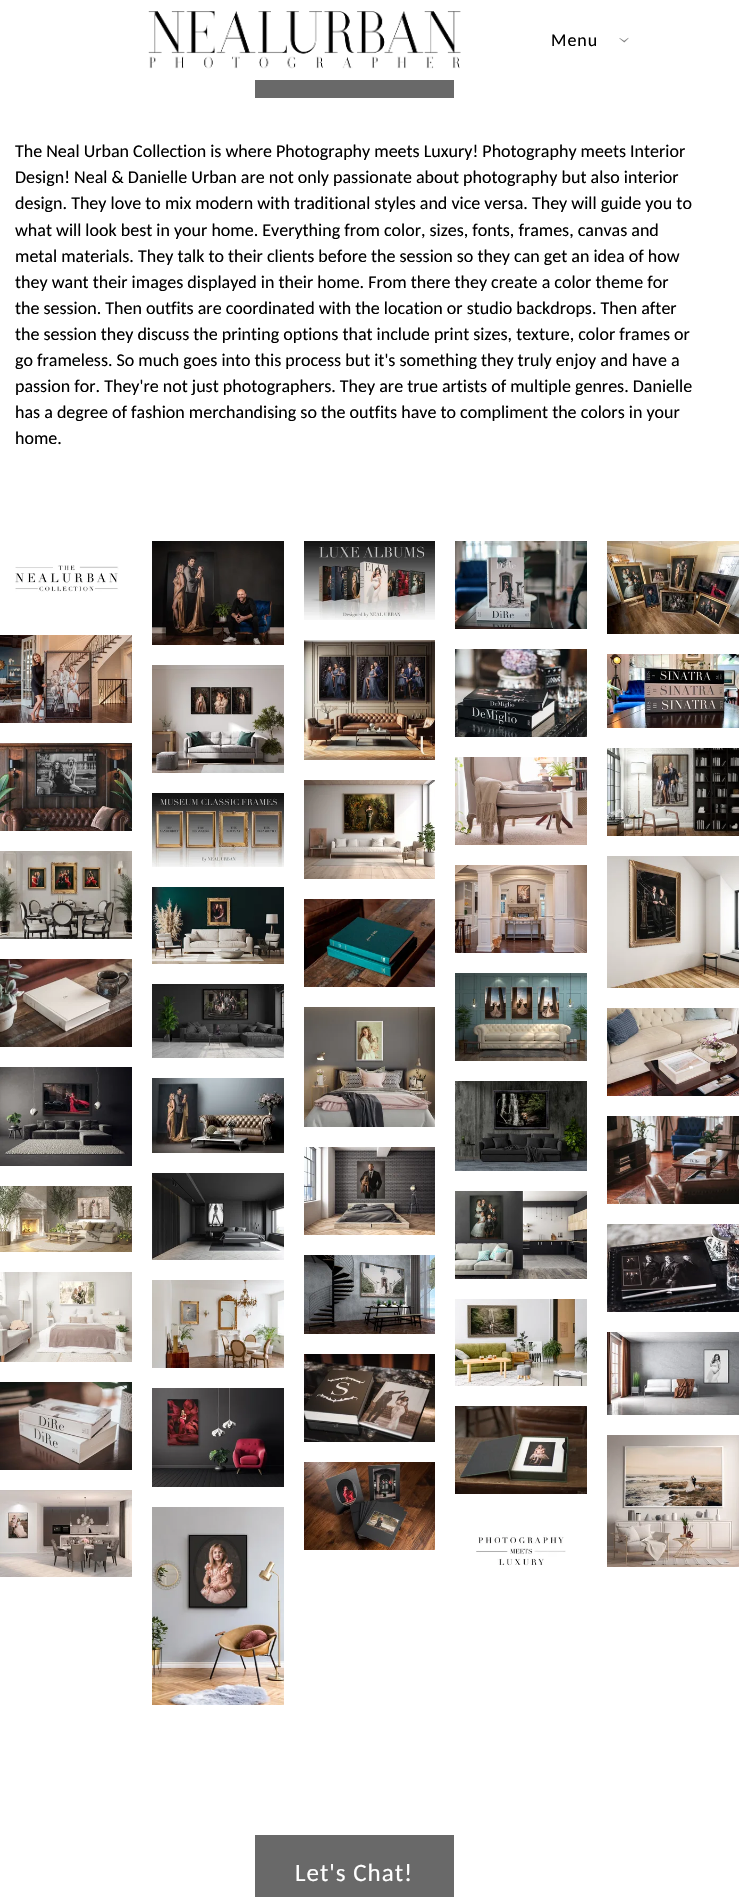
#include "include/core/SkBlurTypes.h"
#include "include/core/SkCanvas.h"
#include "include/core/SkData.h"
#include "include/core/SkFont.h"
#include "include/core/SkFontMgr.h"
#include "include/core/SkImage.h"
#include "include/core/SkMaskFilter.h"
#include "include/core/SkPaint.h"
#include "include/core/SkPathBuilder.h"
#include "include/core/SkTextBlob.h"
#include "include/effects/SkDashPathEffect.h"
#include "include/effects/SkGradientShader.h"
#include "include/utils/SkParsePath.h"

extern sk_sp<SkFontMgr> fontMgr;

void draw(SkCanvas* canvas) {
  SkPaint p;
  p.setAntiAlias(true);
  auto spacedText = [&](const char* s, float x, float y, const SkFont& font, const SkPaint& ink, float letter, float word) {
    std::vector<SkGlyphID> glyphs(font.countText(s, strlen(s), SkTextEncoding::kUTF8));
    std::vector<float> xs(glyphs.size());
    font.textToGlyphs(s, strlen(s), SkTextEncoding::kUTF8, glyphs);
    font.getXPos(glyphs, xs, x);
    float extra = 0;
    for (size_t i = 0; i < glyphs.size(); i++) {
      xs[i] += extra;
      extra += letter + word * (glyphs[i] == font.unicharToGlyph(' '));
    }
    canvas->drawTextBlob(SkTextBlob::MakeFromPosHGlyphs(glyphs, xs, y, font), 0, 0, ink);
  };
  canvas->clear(SK_ColorWHITE);
  canvas->drawImageRect(SkImages::DeferredFromEncodedData(SkData::MakeFromFileName("images/1.png")), SkRect::MakeLTRB(148, 11, 461, 69), SkSamplingOptions());
  canvas->drawImageRect(SkImages::DeferredFromEncodedData(SkData::MakeFromFileName("images/2.png")), SkRect::MakeLTRB(619, 37, 629, 43), SkSamplingOptions());
  p.setColor(SkColorSetRGB(105, 105, 105));
  canvas->drawRect(SkRect::MakeLTRB(255, 80, 454, 98), p);
  canvas->drawImageRect(SkImages::DeferredFromEncodedData(SkData::MakeFromFileName("images/3.png")), SkRect::MakeLTRB(15, 565, 119, 592), SkSamplingOptions());
  canvas->drawImageRect(SkImages::DeferredFromEncodedData(SkData::MakeFromFileName("images/4.png")), SkRect::MakeLTRB(0, 635, 132, 723), SkSamplingOptions());
  canvas->drawImageRect(SkImages::DeferredFromEncodedData(SkData::MakeFromFileName("images/5.png")), SkRect::MakeLTRB(0, 743, 132, 831), SkSamplingOptions());
  canvas->drawImageRect(SkImages::DeferredFromEncodedData(SkData::MakeFromFileName("images/6.png")), SkRect::MakeLTRB(0, 851, 132, 939), SkSamplingOptions());
  canvas->drawImageRect(SkImages::DeferredFromEncodedData(SkData::MakeFromFileName("images/7.png")), SkRect::MakeLTRB(0, 959, 132, 1047), SkSamplingOptions());
  canvas->drawImageRect(SkImages::DeferredFromEncodedData(SkData::MakeFromFileName("images/8.png")), SkRect::MakeLTRB(0, 1067, 132, 1166), SkSamplingOptions());
  canvas->drawImageRect(SkImages::DeferredFromEncodedData(SkData::MakeFromFileName("images/9.png")), SkRect::MakeLTRB(0, 1186, 132, 1252), SkSamplingOptions());
  canvas->drawImageRect(SkImages::DeferredFromEncodedData(SkData::MakeFromFileName("images/10.png")), SkRect::MakeLTRB(0, 1272, 132, 1362), SkSamplingOptions());
  canvas->drawImageRect(SkImages::DeferredFromEncodedData(SkData::MakeFromFileName("images/11.png")), SkRect::MakeLTRB(0, 1382, 132, 1470), SkSamplingOptions());
  canvas->drawImageRect(SkImages::DeferredFromEncodedData(SkData::MakeFromFileName("images/12.png")), SkRect::MakeLTRB(0, 1490, 132, 1577), SkSamplingOptions());
  canvas->drawImageRect(SkImages::DeferredFromEncodedData(SkData::MakeFromFileName("images/13.png")), SkRect::MakeLTRB(152, 541, 284, 645), SkSamplingOptions());
  canvas->drawImageRect(SkImages::DeferredFromEncodedData(SkData::MakeFromFileName("images/14.png")), SkRect::MakeLTRB(152, 665, 284, 773), SkSamplingOptions());
  canvas->drawImageRect(SkImages::DeferredFromEncodedData(SkData::MakeFromFileName("images/15.png")), SkRect::MakeLTRB(152, 793, 284, 867), SkSamplingOptions());
  canvas->drawImageRect(SkImages::DeferredFromEncodedData(SkData::MakeFromFileName("images/16.png")), SkRect::MakeLTRB(152, 887, 284, 964), SkSamplingOptions());
  canvas->drawImageRect(SkImages::DeferredFromEncodedData(SkData::MakeFromFileName("images/17.png")), SkRect::MakeLTRB(152, 984, 284, 1058), SkSamplingOptions());
  canvas->drawImageRect(SkImages::DeferredFromEncodedData(SkData::MakeFromFileName("images/18.png")), SkRect::MakeLTRB(152, 1078, 284, 1153), SkSamplingOptions());
  canvas->drawImageRect(SkImages::DeferredFromEncodedData(SkData::MakeFromFileName("images/19.png")), SkRect::MakeLTRB(152, 1173, 284, 1260), SkSamplingOptions());
  canvas->drawImageRect(SkImages::DeferredFromEncodedData(SkData::MakeFromFileName("images/20.png")), SkRect::MakeLTRB(152, 1280, 284, 1368), SkSamplingOptions());
  canvas->drawImageRect(SkImages::DeferredFromEncodedData(SkData::MakeFromFileName("images/21.png")), SkRect::MakeLTRB(152, 1388, 284, 1487), SkSamplingOptions());
  canvas->drawImageRect(SkImages::DeferredFromEncodedData(SkData::MakeFromFileName("images/22.png")), SkRect::MakeLTRB(152, 1507, 284, 1705), SkSamplingOptions());
  canvas->drawImageRect(SkImages::DeferredFromEncodedData(SkData::MakeFromFileName("images/23.png")), SkRect::MakeLTRB(304, 541, 435, 620), SkSamplingOptions());
  canvas->drawImageRect(SkImages::DeferredFromEncodedData(SkData::MakeFromFileName("images/24.png")), SkRect::MakeLTRB(304, 640, 435, 760), SkSamplingOptions());
  canvas->drawImageRect(SkImages::DeferredFromEncodedData(SkData::MakeFromFileName("images/25.png")), SkRect::MakeLTRB(304, 780, 435, 879), SkSamplingOptions());
  canvas->drawImageRect(SkImages::DeferredFromEncodedData(SkData::MakeFromFileName("images/26.png")), SkRect::MakeLTRB(304, 899, 435, 987), SkSamplingOptions());
  canvas->drawImageRect(SkImages::DeferredFromEncodedData(SkData::MakeFromFileName("images/27.png")), SkRect::MakeLTRB(304, 1007, 435, 1127), SkSamplingOptions());
  canvas->drawImageRect(SkImages::DeferredFromEncodedData(SkData::MakeFromFileName("images/28.png")), SkRect::MakeLTRB(304, 1147, 435, 1235), SkSamplingOptions());
  canvas->drawImageRect(SkImages::DeferredFromEncodedData(SkData::MakeFromFileName("images/29.png")), SkRect::MakeLTRB(304, 1255, 435, 1334), SkSamplingOptions());
  canvas->drawImageRect(SkImages::DeferredFromEncodedData(SkData::MakeFromFileName("images/30.png")), SkRect::MakeLTRB(304, 1354, 435, 1442), SkSamplingOptions());
  canvas->drawImageRect(SkImages::DeferredFromEncodedData(SkData::MakeFromFileName("images/31.png")), SkRect::MakeLTRB(304, 1462, 435, 1550), SkSamplingOptions());
  canvas->drawImageRect(SkImages::DeferredFromEncodedData(SkData::MakeFromFileName("images/32.png")), SkRect::MakeLTRB(455, 541, 587, 629), SkSamplingOptions());
  canvas->drawImageRect(SkImages::DeferredFromEncodedData(SkData::MakeFromFileName("images/33.png")), SkRect::MakeLTRB(455, 649, 587, 737), SkSamplingOptions());
  canvas->drawImageRect(SkImages::DeferredFromEncodedData(SkData::MakeFromFileName("images/34.png")), SkRect::MakeLTRB(455, 757, 587, 845), SkSamplingOptions());
  canvas->drawImageRect(SkImages::DeferredFromEncodedData(SkData::MakeFromFileName("images/35.png")), SkRect::MakeLTRB(455, 865, 587, 953), SkSamplingOptions());
  canvas->drawImageRect(SkImages::DeferredFromEncodedData(SkData::MakeFromFileName("images/36.png")), SkRect::MakeLTRB(455, 973, 587, 1061), SkSamplingOptions());
  canvas->drawImageRect(SkImages::DeferredFromEncodedData(SkData::MakeFromFileName("images/37.png")), SkRect::MakeLTRB(455, 1081, 587, 1171), SkSamplingOptions());
  canvas->drawImageRect(SkImages::DeferredFromEncodedData(SkData::MakeFromFileName("images/38.png")), SkRect::MakeLTRB(455, 1191, 587, 1279), SkSamplingOptions());
  canvas->drawImageRect(SkImages::DeferredFromEncodedData(SkData::MakeFromFileName("images/39.png")), SkRect::MakeLTRB(455, 1299, 587, 1386), SkSamplingOptions());
  canvas->drawImageRect(SkImages::DeferredFromEncodedData(SkData::MakeFromFileName("images/40.png")), SkRect::MakeLTRB(455, 1406, 587, 1494), SkSamplingOptions());
  canvas->drawImageRect(SkImages::DeferredFromEncodedData(SkData::MakeFromFileName("images/41.png")), SkRect::MakeLTRB(476, 1535, 566, 1566), SkSamplingOptions());
  canvas->drawImageRect(SkImages::DeferredFromEncodedData(SkData::MakeFromFileName("images/42.png")), SkRect::MakeLTRB(607, 541, 739, 634), SkSamplingOptions());
  canvas->drawImageRect(SkImages::DeferredFromEncodedData(SkData::MakeFromFileName("images/43.png")), SkRect::MakeLTRB(607, 654, 739, 728), SkSamplingOptions());
  canvas->drawImageRect(SkImages::DeferredFromEncodedData(SkData::MakeFromFileName("images/44.png")), SkRect::MakeLTRB(607, 748, 739, 836), SkSamplingOptions());
  canvas->drawImageRect(SkImages::DeferredFromEncodedData(SkData::MakeFromFileName("images/45.png")), SkRect::MakeLTRB(607, 856, 739, 988), SkSamplingOptions());
  canvas->drawImageRect(SkImages::DeferredFromEncodedData(SkData::MakeFromFileName("images/46.png")), SkRect::MakeLTRB(607, 1008, 739, 1096), SkSamplingOptions());
  canvas->drawImageRect(SkImages::DeferredFromEncodedData(SkData::MakeFromFileName("images/47.png")), SkRect::MakeLTRB(607, 1116, 739, 1204), SkSamplingOptions());
  canvas->drawImageRect(SkImages::DeferredFromEncodedData(SkData::MakeFromFileName("images/48.png")), SkRect::MakeLTRB(607, 1224, 739, 1312), SkSamplingOptions());
  canvas->drawImageRect(SkImages::DeferredFromEncodedData(SkData::MakeFromFileName("images/49.png")), SkRect::MakeLTRB(607, 1332, 739, 1415), SkSamplingOptions());
  canvas->drawImageRect(SkImages::DeferredFromEncodedData(SkData::MakeFromFileName("images/50.png")), SkRect::MakeLTRB(607, 1435, 739, 1567), SkSamplingOptions());
  canvas->drawRect(SkRect::MakeLTRB(255, 1835, 454, 1897), p);
  SkFont font1(fontMgr->matchFamilyStyle("Carlito", SkFontStyle::Normal()), 18);
  font1.setSubpixel(true);
  p.setColor(SK_ColorBLACK);
  spacedText("Menu", 551, 46, font1, p, 1, 0);
  canvas->drawString("The Neal Urban Collection is where Photography meets Luxury! Photography meets Interior", 15, 157, font1, p);
  canvas->drawString("Design! Neal & Danielle Urban are not only passionate about photography but also interior", 15, 183, font1, p);
  canvas->drawString("design. They love to mix modern with traditional styles and vice versa. They will guide you to", 15, 209, font1, p);
  canvas->drawString("what will look best in your home. Everything from color, sizes, fonts, frames, canvas and", 15, 236, font1, p);
  canvas->drawString("metal materials. They talk to their clients before the session so they can get an idea of how", 15, 262, font1, p);
  canvas->drawString("they want their images displayed in their home. From there they create a color theme for", 15, 288, font1, p);
  canvas->drawString("the session. Then outfits are coordinated with the location or studio backdrops. Then after", 15, 314, font1, p);
  canvas->drawString("the session they discuss the printing options that include print sizes, texture, color frames or", 15, 340, font1, p);
  canvas->drawString("go frameless. So much goes into this process but it's something they truly enjoy and have a", 15, 366, font1, p);
  canvas->drawString("passion for. They're not just photographers. They are true artists of multiple genres. Danielle", 15, 392, font1, p);
  canvas->drawString("has a degree of fashion merchandising so the outfits have to compliment the colors in your", 15, 418, font1, p);
  canvas->drawString("home.", 15, 444, font1, p);
  SkFont font2(fontMgr->matchFamilyStyle("Carlito", SkFontStyle::Normal()), 25);
  font2.setSubpixel(true);
  p.setColor(SK_ColorWHITE);
  spacedText("Let's Chat!", 295, 1881, font2, p, 1, 0);
}
